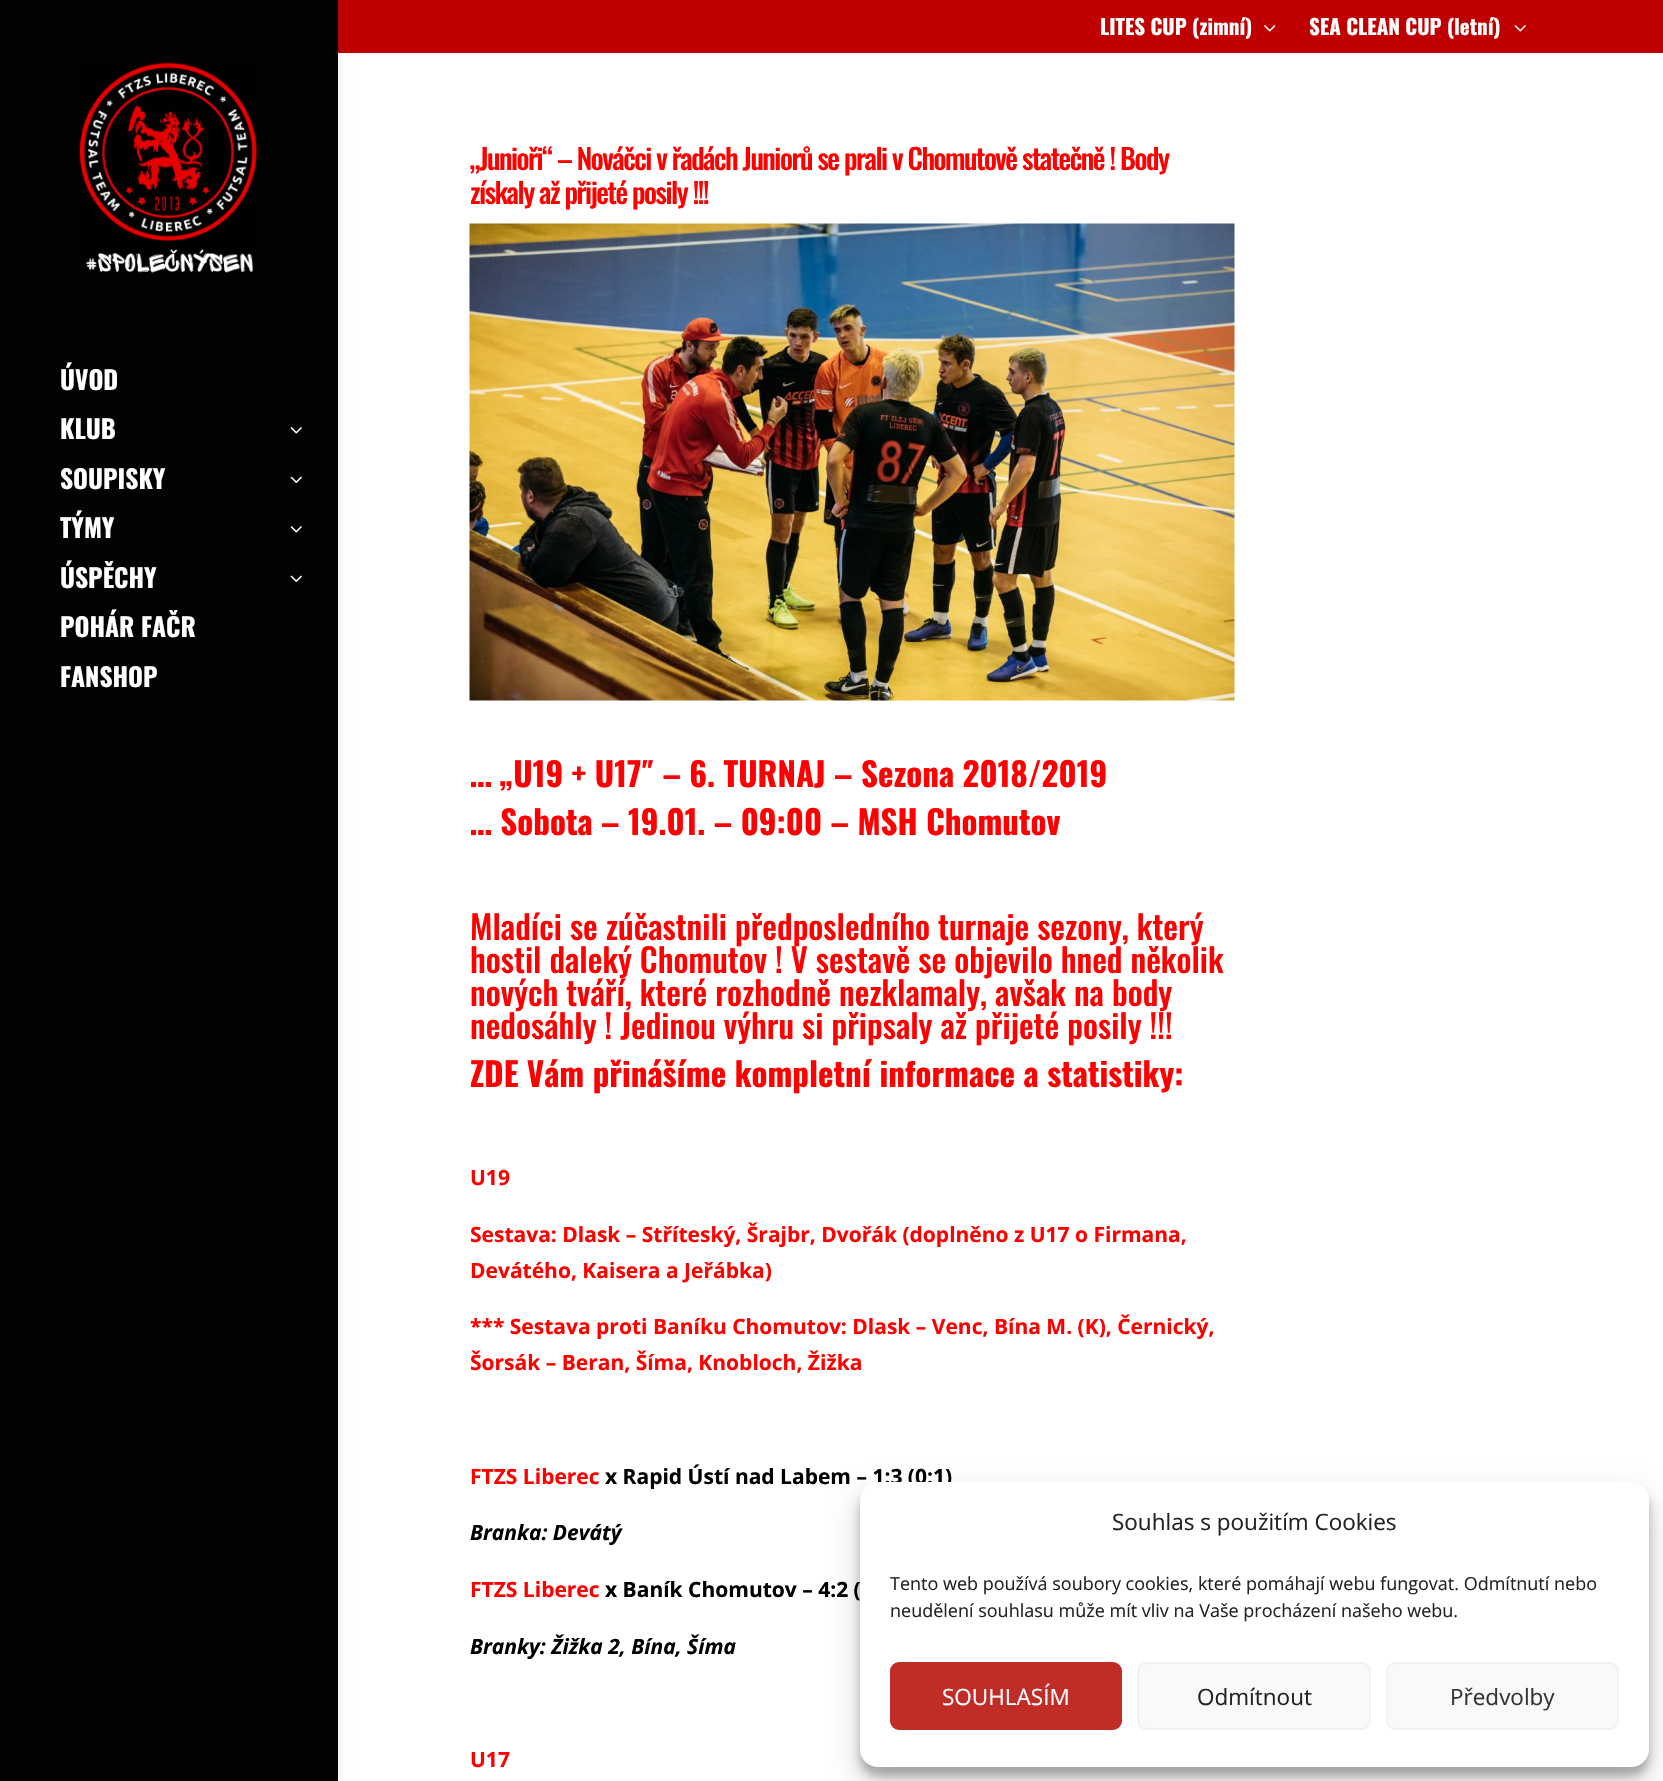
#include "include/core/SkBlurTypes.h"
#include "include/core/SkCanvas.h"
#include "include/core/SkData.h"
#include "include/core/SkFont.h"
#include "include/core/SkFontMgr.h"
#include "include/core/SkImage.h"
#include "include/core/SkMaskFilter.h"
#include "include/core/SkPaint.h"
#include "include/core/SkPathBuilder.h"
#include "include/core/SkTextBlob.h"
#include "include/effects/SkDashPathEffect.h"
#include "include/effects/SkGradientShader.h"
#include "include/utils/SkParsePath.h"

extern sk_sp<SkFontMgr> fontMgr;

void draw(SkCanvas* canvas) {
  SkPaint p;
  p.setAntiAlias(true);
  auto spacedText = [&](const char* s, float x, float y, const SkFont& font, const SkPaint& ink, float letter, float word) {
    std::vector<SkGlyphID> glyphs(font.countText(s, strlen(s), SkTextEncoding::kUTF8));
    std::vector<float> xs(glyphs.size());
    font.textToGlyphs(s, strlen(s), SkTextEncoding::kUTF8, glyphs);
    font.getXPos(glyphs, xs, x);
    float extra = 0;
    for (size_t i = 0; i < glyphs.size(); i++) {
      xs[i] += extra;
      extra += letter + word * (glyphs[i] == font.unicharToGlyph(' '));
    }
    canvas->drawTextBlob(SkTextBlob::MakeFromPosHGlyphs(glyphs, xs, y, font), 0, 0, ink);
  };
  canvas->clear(SK_ColorWHITE);
  p.setColor(SkColorSetRGB(192, 0, 0));
  canvas->drawRect(SkRect::MakeLTRB(338, 0, 1663, 53), p);
  canvas->drawImageRect(SkImages::DeferredFromEncodedData(SkData::MakeFromFileName("images/1.png")), SkRect::MakeLTRB(1264, 25, 1276, 32), SkSamplingOptions());
  canvas->drawImageRect(SkImages::DeferredFromEncodedData(SkData::MakeFromFileName("images/2.png")), SkRect::MakeLTRB(1514, 25, 1526, 32), SkSamplingOptions());
  p.setColor(SkColorSetARGB(26, 0, 0, 0));
  p.setMaskFilter(SkMaskFilter::MakeBlur(kNormal_SkBlurStyle, 5));
  canvas->drawRect(SkRect::MakeLTRB(0, 0, 338, 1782), p);
  p.setMaskFilter(nullptr);
  p.setColor(SkColorSetRGB(2, 2, 2));
  canvas->drawRect(SkRect::MakeLTRB(0, 0, 338, 1781), p);
  canvas->drawImageRect(SkImages::DeferredFromEncodedData(SkData::MakeFromFileName("images/3.png")), SkRect::MakeLTRB(79, 62, 257, 273), SkSamplingOptions());
  canvas->drawImageRect(SkImages::DeferredFromEncodedData(SkData::MakeFromFileName("images/4.png")), SkRect::MakeLTRB(290, 427, 302, 434), SkSamplingOptions());
  canvas->drawImageRect(SkImages::DeferredFromEncodedData(SkData::MakeFromFileName("images/5.png")), SkRect::MakeLTRB(290, 476, 302, 483), SkSamplingOptions());
  canvas->drawImageRect(SkImages::DeferredFromEncodedData(SkData::MakeFromFileName("images/4.png")), SkRect::MakeLTRB(290, 526, 302, 533), SkSamplingOptions());
  canvas->drawImageRect(SkImages::DeferredFromEncodedData(SkData::MakeFromFileName("images/5.png")), SkRect::MakeLTRB(290, 575, 302, 582), SkSamplingOptions());
  canvas->drawImageRect(SkImages::DeferredFromEncodedData(SkData::MakeFromFileName("images/6.png")), SkRect::MakeLTRB(469, 223, 1235, 701), SkSamplingOptions());
  p.setColor(SkColorSetARGB(59, 0, 0, 0));
  p.setMaskFilter(SkMaskFilter::MakeBlur(kNormal_SkBlurStyle, 4.5f));
  canvas->drawRoundRect(SkRect::MakeLTRB(860, 1491, 1649, 1776), 18, 18, p);
  p.setMaskFilter(nullptr);
  p.setColor(SkColorSetARGB(48, 0, 0, 0));
  p.setMaskFilter(SkMaskFilter::MakeBlur(kNormal_SkBlurStyle, 15));
  canvas->drawRoundRect(SkRect::MakeLTRB(860, 1497, 1649, 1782), 18, 18, p);
  p.setMaskFilter(nullptr);
  SkFont font1(fontMgr->matchFamilyStyle("Oswald", SkFontStyle::Bold()), 21);
  font1.setSubpixel(true);
  p.setColor(SK_ColorWHITE);
  canvas->drawString("LITES CUP (zimní)", 1100, 35, font1, p);
  canvas->drawString("SEA CLEAN CUP (letní)", 1309, 35, font1, p);
  SkFont font2(fontMgr->matchFamilyStyle("Oswald", SkFontStyle::Bold()), 25.5f);
  font2.setSubpixel(true);
  canvas->drawString("ÚVOD", 60, 390, font2, p);
  canvas->drawString("KLUB", 60, 439, font2, p);
  canvas->drawString("SOUPISKY", 60, 489, font2, p);
  canvas->drawString("TÝMY", 60, 538, font2, p);
  canvas->drawString("ÚSPĚCHY", 60, 588, font2, p);
  canvas->drawString("POHÁR FAČR", 60, 637, font2, p);
  canvas->drawString("FANSHOP", 60, 687, font2, p);
  SkFont font3(fontMgr->matchFamilyStyle("Oswald", SkFontStyle(500, SkFontStyle::kNormal_Width, SkFontStyle::kUpright_Slant)), 28.5f);
  font3.setSubpixel(true);
  p.setColor(SkColorSetRGB(255, 0, 0));
  spacedText("„Junioři“ – Nováčci v řadách Juniorů se prali v Chomutově statečně ! Body", 470, 170, font3, p, -1.5f, 0);
  spacedText("získaly až přijeté posily !!!", 470, 204, font3, p, -1.5f, 0);
  SkFont font4(fontMgr->matchFamilyStyle("Oswald", SkFontStyle::Bold()), 33);
  font4.setSubpixel(true);
  canvas->drawString("… „U19 + U17″ – 6. TURNAJ – Sezona 2018/2019", 470, 787, font4, p);
  canvas->drawString("… Sobota – 19.01. – 09:00 – MSH Chomutov", 470, 835, font4, p);
  SkFont font5(fontMgr->matchFamilyStyle("Oswald", SkFontStyle(500, SkFontStyle::kNormal_Width, SkFontStyle::kUpright_Slant)), 33);
  font5.setSubpixel(true);
  canvas->drawString("Mladíci se zúčastnili předposledního turnaje sezony, který", 470, 940, font5, p);
  canvas->drawString("hostil daleký Chomutov ! V sestavě se objevilo hned několik", 470, 973, font5, p);
  canvas->drawString("nových tváří, které rozhodně nezklamaly, avšak na body", 470, 1006, font5, p);
  canvas->drawString("nedosáhly ! Jedinou výhru si připsaly až přijeté posily !!!", 470, 1039, font5, p);
  canvas->drawString("ZDE Vám přinášíme kompletní informace a statistiky:", 470, 1087, font4, p);
  SkFont font6(fontMgr->matchFamilyStyle("Open Sans", SkFontStyle::Bold()), 21);
  font6.setSubpixel(true);
  canvas->drawString("U19", 470, 1185, font6, p);
  canvas->drawString("Sestava: Dlask – Stříteský, Šrajbr, Dvořák (doplněno z U17 o Firmana,", 470, 1242, font6, p);
  canvas->drawString("Devátého, Kaisera a Jeřábka)", 470, 1278, font6, p);
  canvas->drawString("*** Sestava proti Baníku Chomutov: Dlask – Venc, Bína M. (K), Černický,", 470, 1334, font6, p);
  canvas->drawString("Šorsák – Beran, Šíma, Knobloch, Žižka", 470, 1370, font6, p);
  canvas->drawString("FTZS Liberec", 470, 1484, font6, p);
  p.setColor(SK_ColorBLACK);
  canvas->drawString("x Rapid Ústí nad Labem – 1:3 (0:1)", 605, 1484, font6, p);
  SkFont font7(fontMgr->matchFamilyStyle("Open Sans", SkFontStyle::BoldItalic()), 21);
  font7.setSubpixel(true);
  canvas->drawString("Branka: Devátý", 470, 1540, font7, p);
  p.setColor(SkColorSetRGB(255, 0, 0));
  canvas->drawString("FTZS Liberec", 470, 1597, font6, p);
  p.setColor(SK_ColorBLACK);
  canvas->drawString("x Baník Chomutov – 4:2 (", 605, 1597, font6, p);
  canvas->drawString("Branky: Žižka 2, Bína, Šíma", 470, 1654, font7, p);
  p.setColor(SkColorSetRGB(255, 0, 0));
  canvas->drawString("U17", 470, 1767, font6, p);
  p.setColor(SK_ColorWHITE);
  canvas->drawRoundRect(SkRect::MakeLTRB(860, 1482, 1649, 1767), 18, 18, p);
  SkFont font8(fontMgr->matchFamilyStyle("Open Sans", SkFontStyle::Normal()), 22.5f);
  font8.setSubpixel(true);
  p.setColor(SkColorSetRGB(34, 34, 34));
  canvas->drawString("Souhlas s použitím Cookies", 1112, 1530, font8, p);
  SkFont font9(fontMgr->matchFamilyStyle("Open Sans", SkFontStyle::Normal()), 18);
  font9.setSubpixel(true);
  canvas->drawString("Tento web používá soubory cookies, které pomáhají webu fungovat. Odmítnutí nebo", 890, 1590, font9, p);
  canvas->drawString("neudělení souhlasu může mít vliv na Vaše procházení našeho webu.", 890, 1617, font9, p);
  p.setColor(SkColorSetRGB(193, 44, 39));
  canvas->drawRoundRect(SkRect::MakeLTRB(891, 1663, 1121, 1729), 8, 8, p);
  p.setStyle(SkPaint::kStroke_Style);
  p.setStrokeWidth(2);
  canvas->drawRoundRect(SkRect::MakeLTRB(891, 1663, 1121, 1729), 8, 8, p);
  p.setStyle(SkPaint::kFill_Style);
  p.setColor(SK_ColorWHITE);
  canvas->drawString("SOUHLASÍM", 942, 1705, font8, p);
  p.setColor(SkColorSetRGB(249, 249, 249));
  canvas->drawRoundRect(SkRect::MakeLTRB(1138, 1663, 1370, 1729), 8, 8, p);
  p.setStyle(SkPaint::kStroke_Style);
  p.setColor(SkColorSetRGB(242, 242, 242));
  canvas->drawRoundRect(SkRect::MakeLTRB(1138, 1663, 1370, 1729), 8, 8, p);
  p.setStyle(SkPaint::kFill_Style);
  p.setColor(SkColorSetRGB(34, 34, 34));
  canvas->drawString("Odmítnout", 1197, 1705, font8, p);
  p.setColor(SkColorSetRGB(249, 249, 249));
  canvas->drawRoundRect(SkRect::MakeLTRB(1387, 1663, 1618, 1729), 8, 8, p);
  p.setStyle(SkPaint::kStroke_Style);
  p.setColor(SkColorSetRGB(242, 242, 242));
  canvas->drawRoundRect(SkRect::MakeLTRB(1387, 1663, 1618, 1729), 8, 8, p);
  p.setStyle(SkPaint::kFill_Style);
  p.setColor(SkColorSetRGB(51, 51, 51));
  canvas->drawString("Předvolby", 1450, 1705, font8, p);
}
